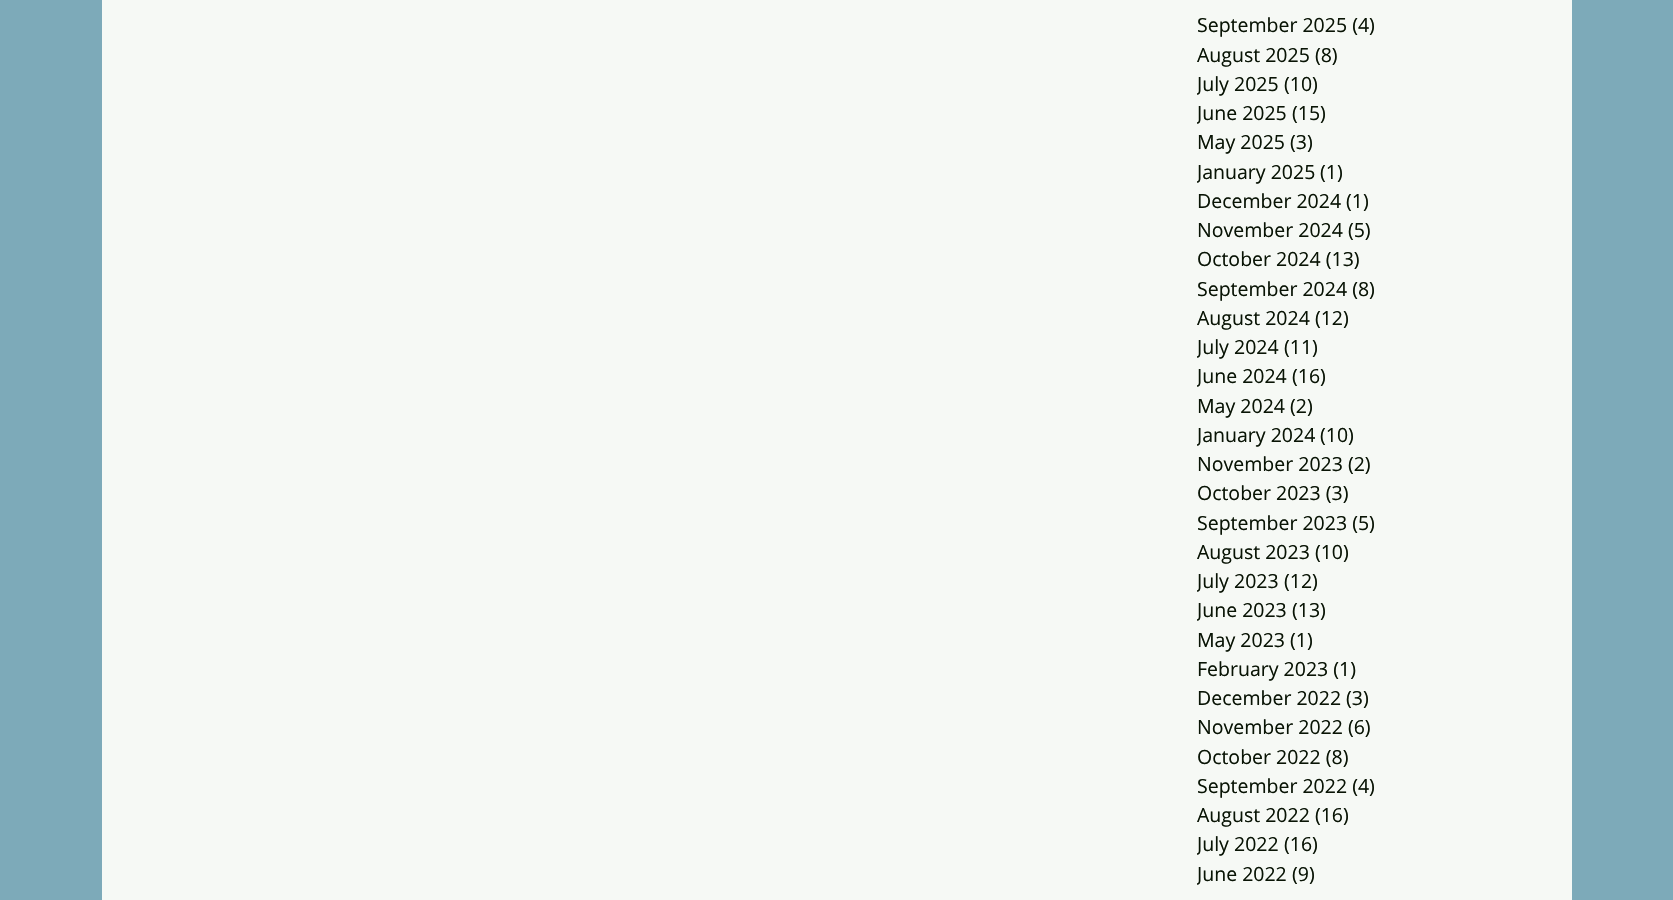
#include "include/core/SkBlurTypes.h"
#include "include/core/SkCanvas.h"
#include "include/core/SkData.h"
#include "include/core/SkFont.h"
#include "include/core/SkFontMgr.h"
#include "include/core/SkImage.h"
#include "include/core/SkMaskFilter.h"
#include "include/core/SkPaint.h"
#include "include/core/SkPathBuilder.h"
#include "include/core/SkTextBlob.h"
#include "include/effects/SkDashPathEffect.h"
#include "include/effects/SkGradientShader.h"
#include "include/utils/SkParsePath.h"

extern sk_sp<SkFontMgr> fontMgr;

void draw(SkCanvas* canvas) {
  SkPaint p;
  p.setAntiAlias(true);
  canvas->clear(SkColorSetRGB(125, 170, 185));
  p.setColor(SkColorSetRGB(246, 249, 245));
  canvas->drawRect(SkRect::MakeLTRB(102, 0, 1572, 900), p);
  SkFont font1(fontMgr->matchFamilyStyle("Open Sans", SkFontStyle::Normal()), 19.5f);
  font1.setSubpixel(true);
  p.setColor(SkColorSetRGB(9, 20, 5));
  canvas->drawString("September 2025 (4)", 1197, 32, font1, p);
  canvas->drawString("August 2025 (8)", 1197, 62, font1, p);
  canvas->save();
  canvas->clipRect(SkRect::MakeLTRB(1197, 71, 1317, 99));
  canvas->drawString("July 2025", 1197, 91, font1, p);
  canvas->restore();
  canvas->drawString("(10)", 1284, 91, font1, p);
  canvas->save();
  canvas->clipRect(SkRect::MakeLTRB(1197, 99, 1326, 129));
  canvas->drawString("June 2025", 1197, 120, font1, p);
  canvas->restore();
  canvas->drawString("(15)", 1292, 120, font1, p);
  canvas->drawString("May 2025 (3)", 1197, 149, font1, p);
  canvas->save();
  canvas->clipRect(SkRect::MakeLTRB(1197, 158, 1343, 188));
  canvas->drawString("January 2025", 1197, 179, font1, p);
  canvas->restore();
  canvas->drawString("(1)", 1320, 179, font1, p);
  canvas->drawString("December 2024 (1)", 1197, 208, font1, p);
  canvas->drawString("November 2024 (5)", 1197, 237, font1, p);
  canvas->drawString("October 2024 (13)", 1197, 266, font1, p);
  canvas->drawString("September 2024 (8)", 1197, 296, font1, p);
  canvas->drawString("August 2024 (12)", 1197, 325, font1, p);
  canvas->save();
  canvas->clipRect(SkRect::MakeLTRB(1197, 333, 1317, 363));
  canvas->drawString("July 2024", 1197, 354, font1, p);
  canvas->restore();
  canvas->drawString("(11)", 1284, 354, font1, p);
  canvas->save();
  canvas->clipRect(SkRect::MakeLTRB(1197, 363, 1326, 392));
  canvas->drawString("June 2024", 1197, 383, font1, p);
  canvas->restore();
  canvas->drawString("(16)", 1292, 383, font1, p);
  canvas->drawString("May 2024 (2)", 1197, 413, font1, p);
  canvas->save();
  canvas->clipRect(SkRect::MakeLTRB(1197, 422, 1355, 450));
  canvas->drawString("January 2024", 1197, 442, font1, p);
  canvas->restore();
  canvas->drawString("(10)", 1320, 442, font1, p);
  canvas->drawString("November 2023 (2)", 1197, 471, font1, p);
  canvas->drawString("October 2023 (3)", 1197, 500, font1, p);
  canvas->drawString("September 2023 (5)", 1197, 530, font1, p);
  canvas->drawString("August 2023 (10)", 1197, 559, font1, p);
  canvas->save();
  canvas->clipRect(SkRect::MakeLTRB(1197, 567, 1317, 597));
  canvas->drawString("July 2023", 1197, 588, font1, p);
  canvas->restore();
  canvas->drawString("(12)", 1284, 588, font1, p);
  canvas->save();
  canvas->clipRect(SkRect::MakeLTRB(1197, 597, 1326, 626));
  canvas->drawString("June 2023", 1197, 617, font1, p);
  canvas->restore();
  canvas->drawString("(13)", 1292, 617, font1, p);
  canvas->drawString("May 2023 (1)", 1197, 647, font1, p);
  canvas->drawString("February 2023 (1)", 1197, 676, font1, p);
  canvas->drawString("December 2022 (3)", 1197, 705, font1, p);
  canvas->drawString("November 2022 (6)", 1197, 734, font1, p);
  canvas->drawString("October 2022 (8)", 1197, 764, font1, p);
  canvas->drawString("September 2022 (4)", 1197, 793, font1, p);
  canvas->drawString("August 2022 (16)", 1197, 822, font1, p);
  canvas->save();
  canvas->clipRect(SkRect::MakeLTRB(1197, 831, 1317, 860));
  canvas->drawString("July 2022", 1197, 851, font1, p);
  canvas->restore();
  canvas->drawString("(16)", 1284, 851, font1, p);
  canvas->save();
  canvas->clipRect(SkRect::MakeLTRB(1197, 860, 1314, 890));
  canvas->drawString("June 2022", 1197, 881, font1, p);
  canvas->restore();
  canvas->drawString("(9)", 1292, 881, font1, p);
}
